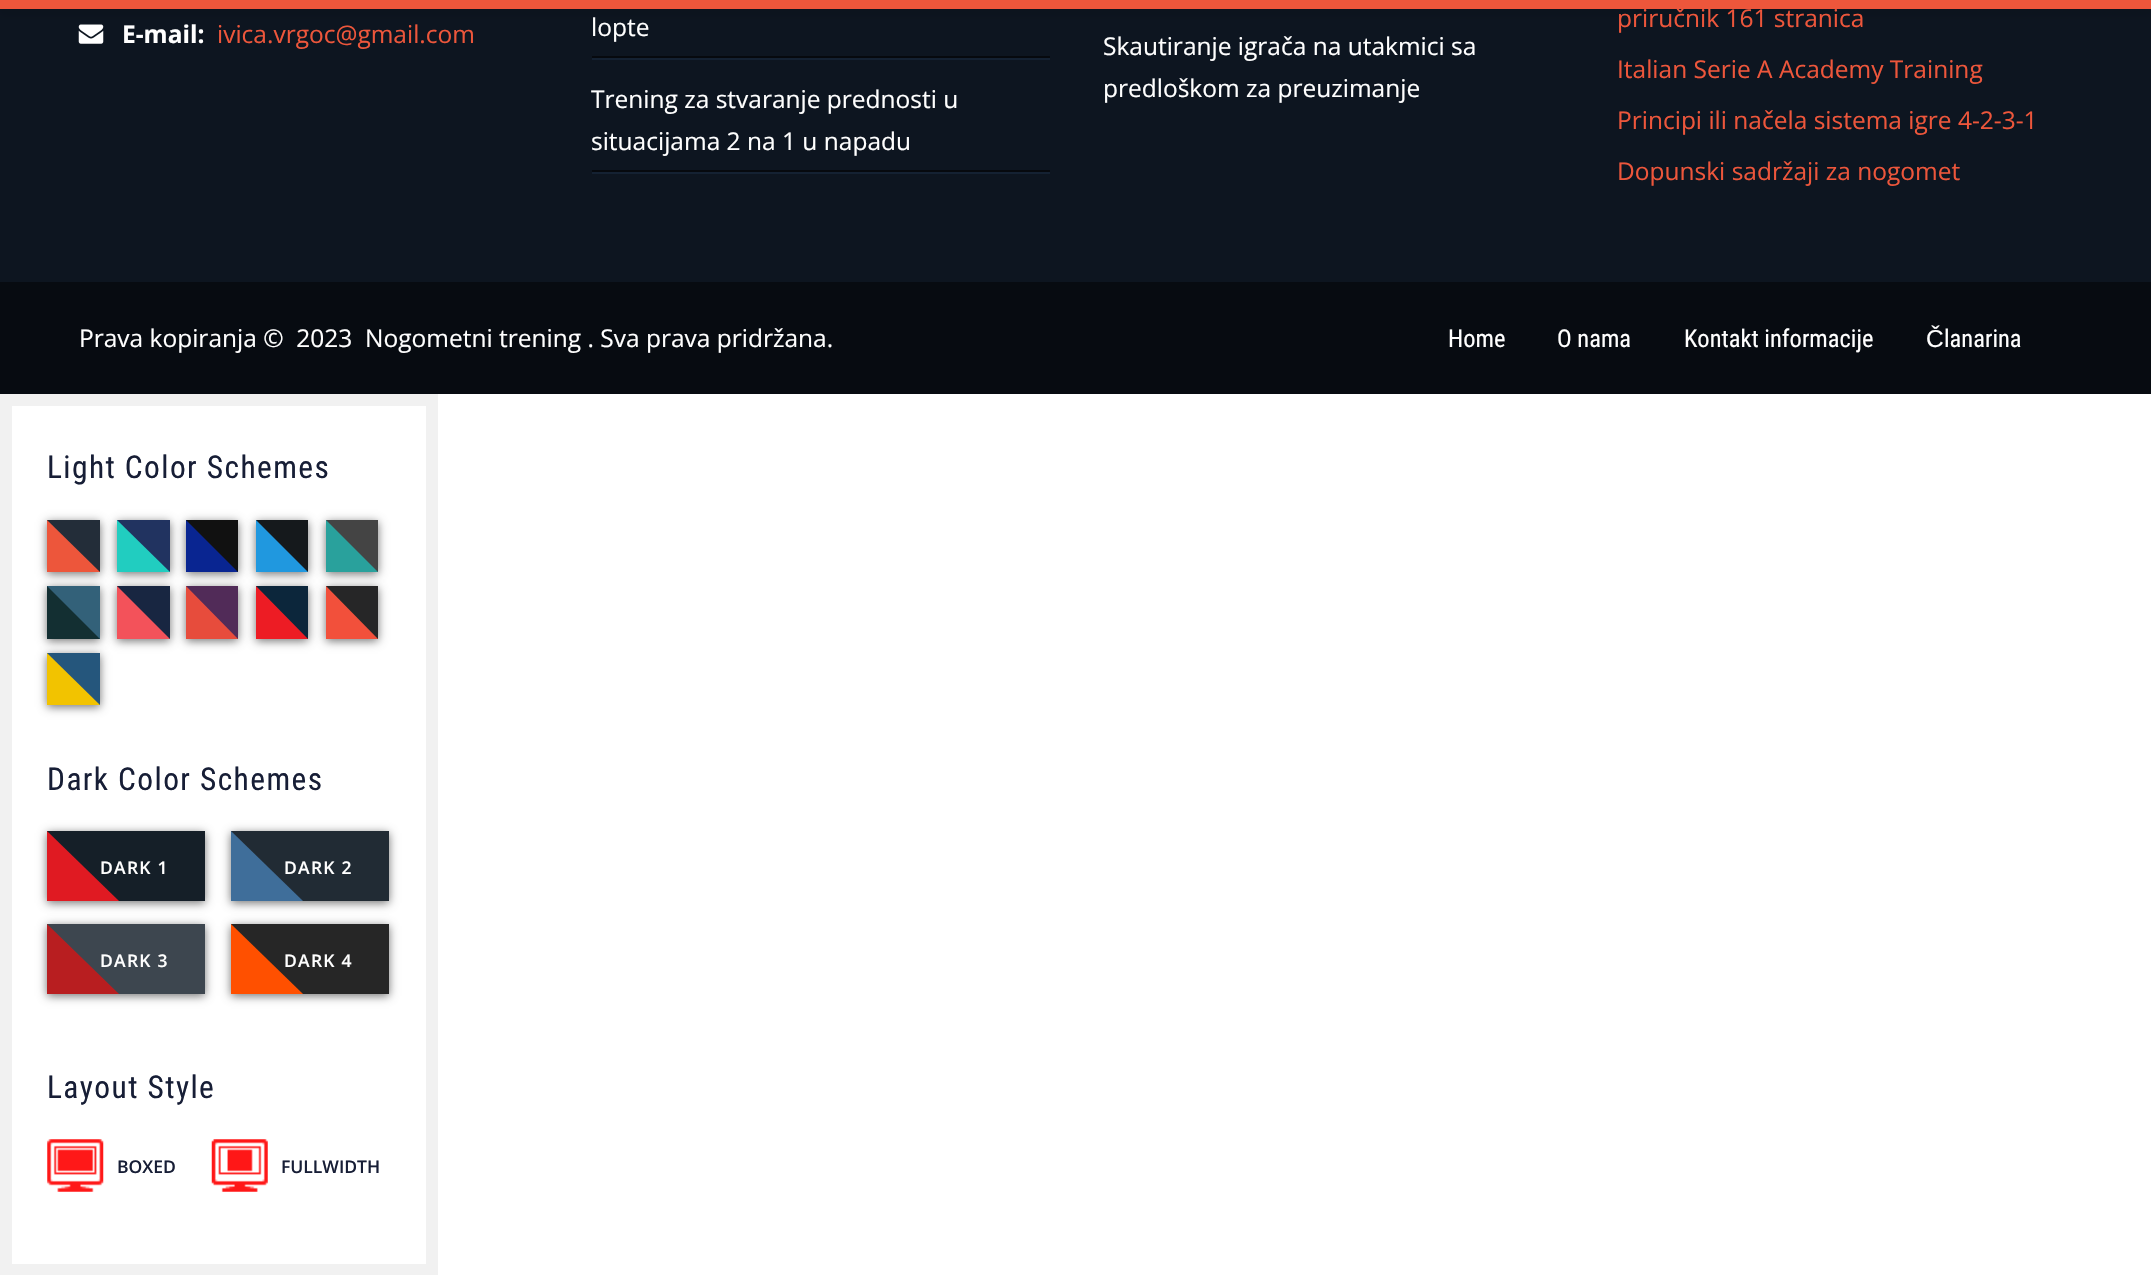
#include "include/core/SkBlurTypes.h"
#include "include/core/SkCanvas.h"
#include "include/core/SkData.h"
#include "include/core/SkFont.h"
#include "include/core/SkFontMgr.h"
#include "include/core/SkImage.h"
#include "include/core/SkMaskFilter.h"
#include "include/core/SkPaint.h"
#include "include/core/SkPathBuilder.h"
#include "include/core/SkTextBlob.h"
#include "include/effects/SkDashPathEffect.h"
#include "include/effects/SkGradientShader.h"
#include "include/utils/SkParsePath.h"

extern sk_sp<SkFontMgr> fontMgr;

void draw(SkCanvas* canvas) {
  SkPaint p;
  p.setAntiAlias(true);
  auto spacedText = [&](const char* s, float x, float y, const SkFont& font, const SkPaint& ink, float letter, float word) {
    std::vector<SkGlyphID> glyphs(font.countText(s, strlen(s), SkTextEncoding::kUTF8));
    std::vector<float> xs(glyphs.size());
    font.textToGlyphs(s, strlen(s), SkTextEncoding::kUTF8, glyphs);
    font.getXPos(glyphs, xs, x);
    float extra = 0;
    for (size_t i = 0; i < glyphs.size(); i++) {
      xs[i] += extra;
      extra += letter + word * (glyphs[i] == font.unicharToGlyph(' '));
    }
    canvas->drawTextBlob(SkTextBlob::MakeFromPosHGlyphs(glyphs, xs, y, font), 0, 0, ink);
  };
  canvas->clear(SK_ColorWHITE);
  p.setColor(SkColorSetRGB(13, 21, 32));
  canvas->drawRect(SkRect::MakeLTRB(0, 9, 2151, 282), p);
  canvas->drawImageRect(SkImages::DeferredFromEncodedData(SkData::MakeFromFileName("images/1.png")), SkRect::MakeLTRB(78, 24, 104, 44), SkSamplingOptions());
  p.setColor(SkColorSetARGB(26, 0, 0, 0));
  p.setMaskFilter(SkMaskFilter::MakeBlur(kNormal_SkBlurStyle, 4.5f));
  canvas->drawRect(SkRect::MakeLTRB(0, 5, 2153, 14), p);
  p.setMaskFilter(nullptr);
  p.setColor(SkColorSetRGB(237, 86, 59));
  canvas->drawRect(SkRect::MakeLTRB(0, 0, 2151, 9), p);
  p.setColor(SkColorSetRGB(6, 9, 14));
  canvas->drawRect(SkRect::MakeLTRB(592, 56, 1050, 58), p);
  p.setColor(SkColorSetRGB(20, 33, 50));
  canvas->drawRect(SkRect::MakeLTRB(592, 58, 1050, 60), p);
  p.setColor(SkColorSetRGB(6, 9, 14));
  canvas->drawRect(SkRect::MakeLTRB(592, 170, 1050, 172), p);
  p.setColor(SkColorSetRGB(20, 33, 50));
  canvas->drawRect(SkRect::MakeLTRB(592, 172, 1050, 174), p);
  p.setColor(SkColorSetRGB(7, 11, 17));
  canvas->drawRect(SkRect::MakeLTRB(0, 282, 2151, 394), p);
  p.setStyle(SkPaint::kStroke_Style);
  p.setStrokeWidth(12);
  p.setColor(SkColorSetRGB(241, 241, 241));
  canvas->drawRect(SkRect::MakeLTRB(6, 400, 432, 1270), p);
  p.setStyle(SkPaint::kFill_Style);
  p.setColor(SkColorSetARGB(140, 0, 0, 0));
  p.setMaskFilter(SkMaskFilter::MakeBlur(kNormal_SkBlurStyle, 4.5f));
  canvas->drawRect(SkRect::MakeLTRB(47, 522, 100, 574), p);
  p.setMaskFilter(nullptr);
  p.setColor(SkColorSetRGB(35, 45, 57));
  canvas->drawRect(SkRect::MakeLTRB(47, 520, 100, 572), p);
  p.setColor(SkColorSetRGB(237, 86, 59));
  canvas->drawPath(SkPathBuilder().moveTo(47, 572).lineTo(47, 520).lineTo(100, 572).close().detach(), p);
  p.setColor(SkColorSetARGB(140, 0, 0, 0));
  p.setMaskFilter(SkMaskFilter::MakeBlur(kNormal_SkBlurStyle, 4.5f));
  canvas->drawRect(SkRect::MakeLTRB(117, 522, 170, 574), p);
  p.setMaskFilter(nullptr);
  p.setColor(SkColorSetRGB(33, 51, 96));
  canvas->drawRect(SkRect::MakeLTRB(117, 520, 170, 572), p);
  p.setColor(SkColorSetRGB(33, 205, 192));
  canvas->drawPath(SkPathBuilder().moveTo(117, 572).lineTo(117, 520).lineTo(170, 572).close().detach(), p);
  p.setColor(SkColorSetARGB(140, 0, 0, 0));
  p.setMaskFilter(SkMaskFilter::MakeBlur(kNormal_SkBlurStyle, 4.5f));
  canvas->drawRect(SkRect::MakeLTRB(186, 522, 238, 574), p);
  p.setMaskFilter(nullptr);
  p.setColor(SkColorSetRGB(17, 17, 17));
  canvas->drawRect(SkRect::MakeLTRB(186, 520, 238, 572), p);
  p.setColor(SkColorSetRGB(9, 37, 145));
  canvas->drawPath(SkPathBuilder().moveTo(186, 572).lineTo(186, 520).lineTo(238, 572).close().detach(), p);
  p.setColor(SkColorSetARGB(140, 0, 0, 0));
  p.setMaskFilter(SkMaskFilter::MakeBlur(kNormal_SkBlurStyle, 4.5f));
  canvas->drawRect(SkRect::MakeLTRB(256, 522, 308, 574), p);
  p.setMaskFilter(nullptr);
  p.setColor(SkColorSetRGB(21, 25, 28));
  canvas->drawRect(SkRect::MakeLTRB(256, 520, 308, 572), p);
  p.setColor(SkColorSetRGB(32, 152, 223));
  canvas->drawPath(SkPathBuilder().moveTo(256, 572).lineTo(256, 520).lineTo(308, 572).close().detach(), p);
  p.setColor(SkColorSetARGB(140, 0, 0, 0));
  p.setMaskFilter(SkMaskFilter::MakeBlur(kNormal_SkBlurStyle, 4.5f));
  canvas->drawRect(SkRect::MakeLTRB(326, 522, 378, 574), p);
  p.setMaskFilter(nullptr);
  p.setColor(SkColorSetRGB(68, 68, 68));
  canvas->drawRect(SkRect::MakeLTRB(326, 520, 378, 572), p);
  p.setColor(SkColorSetRGB(41, 161, 156));
  canvas->drawPath(SkPathBuilder().moveTo(326, 572).lineTo(326, 520).lineTo(378, 572).close().detach(), p);
  p.setColor(SkColorSetARGB(140, 0, 0, 0));
  p.setMaskFilter(SkMaskFilter::MakeBlur(kNormal_SkBlurStyle, 4.5f));
  canvas->drawRect(SkRect::MakeLTRB(47, 588, 100, 641), p);
  p.setMaskFilter(nullptr);
  p.setColor(SkColorSetRGB(51, 97, 121));
  canvas->drawRect(SkRect::MakeLTRB(47, 586, 100, 639), p);
  p.setColor(SkColorSetRGB(19, 47, 50));
  canvas->drawPath(SkPathBuilder().moveTo(47, 639).lineTo(47, 586).lineTo(100, 639).close().detach(), p);
  p.setColor(SkColorSetARGB(140, 0, 0, 0));
  p.setMaskFilter(SkMaskFilter::MakeBlur(kNormal_SkBlurStyle, 4.5f));
  canvas->drawRect(SkRect::MakeLTRB(117, 588, 170, 641), p);
  p.setMaskFilter(nullptr);
  p.setColor(SkColorSetRGB(24, 38, 65));
  canvas->drawRect(SkRect::MakeLTRB(117, 586, 170, 639), p);
  p.setColor(SkColorSetRGB(243, 82, 90));
  canvas->drawPath(SkPathBuilder().moveTo(117, 639).lineTo(117, 586).lineTo(170, 639).close().detach(), p);
  p.setColor(SkColorSetARGB(140, 0, 0, 0));
  p.setMaskFilter(SkMaskFilter::MakeBlur(kNormal_SkBlurStyle, 4.5f));
  canvas->drawRect(SkRect::MakeLTRB(186, 588, 238, 641), p);
  p.setMaskFilter(nullptr);
  p.setColor(SkColorSetRGB(81, 43, 88));
  canvas->drawRect(SkRect::MakeLTRB(186, 586, 238, 639), p);
  p.setColor(SkColorSetRGB(231, 76, 60));
  canvas->drawPath(SkPathBuilder().moveTo(186, 639).lineTo(186, 586).lineTo(238, 639).close().detach(), p);
  p.setColor(SkColorSetARGB(140, 0, 0, 0));
  p.setMaskFilter(SkMaskFilter::MakeBlur(kNormal_SkBlurStyle, 4.5f));
  canvas->drawRect(SkRect::MakeLTRB(256, 588, 308, 641), p);
  p.setMaskFilter(nullptr);
  p.setColor(SkColorSetRGB(12, 38, 59));
  canvas->drawRect(SkRect::MakeLTRB(256, 586, 308, 639), p);
  p.setColor(SkColorSetRGB(237, 28, 36));
  canvas->drawPath(SkPathBuilder().moveTo(256, 639).lineTo(256, 586).lineTo(308, 639).close().detach(), p);
  p.setColor(SkColorSetARGB(140, 0, 0, 0));
  p.setMaskFilter(SkMaskFilter::MakeBlur(kNormal_SkBlurStyle, 4.5f));
  canvas->drawRect(SkRect::MakeLTRB(326, 588, 378, 641), p);
  p.setMaskFilter(nullptr);
  p.setColor(SkColorSetRGB(38, 38, 39));
  canvas->drawRect(SkRect::MakeLTRB(326, 586, 378, 639), p);
  p.setColor(SkColorSetRGB(242, 80, 59));
  canvas->drawPath(SkPathBuilder().moveTo(326, 639).lineTo(326, 586).lineTo(378, 639).close().detach(), p);
  p.setColor(SkColorSetARGB(140, 0, 0, 0));
  p.setMaskFilter(SkMaskFilter::MakeBlur(kNormal_SkBlurStyle, 4.5f));
  canvas->drawRect(SkRect::MakeLTRB(47, 655, 100, 707), p);
  p.setMaskFilter(nullptr);
  p.setColor(SkColorSetRGB(37, 86, 124));
  canvas->drawRect(SkRect::MakeLTRB(47, 653, 100, 705), p);
  p.setColor(SkColorSetRGB(242, 195, 0));
  canvas->drawPath(SkPathBuilder().moveTo(47, 705).lineTo(47, 653).lineTo(100, 705).close().detach(), p);
  p.setColor(SkColorSetARGB(140, 0, 0, 0));
  p.setMaskFilter(SkMaskFilter::MakeBlur(kNormal_SkBlurStyle, 4.5f));
  canvas->drawRect(SkRect::MakeLTRB(47, 833, 205, 903), p);
  p.setMaskFilter(nullptr);
  p.setColor(SkColorSetRGB(21, 31, 40));
  canvas->drawRect(SkRect::MakeLTRB(47, 831, 205, 901), p);
  p.setColor(SkColorSetARGB(140, 0, 0, 0));
  p.setMaskFilter(SkMaskFilter::MakeBlur(kNormal_SkBlurStyle, 4.5f));
  canvas->drawRect(SkRect::MakeLTRB(231, 833, 389, 903), p);
  p.setMaskFilter(nullptr);
  p.setColor(SkColorSetRGB(33, 43, 52));
  canvas->drawRect(SkRect::MakeLTRB(231, 831, 389, 901), p);
  p.setColor(SkColorSetARGB(140, 0, 0, 0));
  p.setMaskFilter(SkMaskFilter::MakeBlur(kNormal_SkBlurStyle, 4.5f));
  canvas->drawRect(SkRect::MakeLTRB(47, 926, 205, 996), p);
  p.setMaskFilter(nullptr);
  p.setColor(SkColorSetRGB(61, 70, 79));
  canvas->drawRect(SkRect::MakeLTRB(47, 924, 205, 994), p);
  p.setColor(SkColorSetARGB(140, 0, 0, 0));
  p.setMaskFilter(SkMaskFilter::MakeBlur(kNormal_SkBlurStyle, 4.5f));
  canvas->drawRect(SkRect::MakeLTRB(231, 926, 389, 996), p);
  p.setMaskFilter(nullptr);
  p.setColor(SkColorSetRGB(38, 38, 38));
  canvas->drawRect(SkRect::MakeLTRB(231, 924, 389, 994), p);
  canvas->drawImageRect(SkImages::DeferredFromEncodedData(SkData::MakeFromFileName("images/2.png")), SkRect::MakeLTRB(47, 1139, 104, 1192), SkSamplingOptions());
  canvas->drawImageRect(SkImages::DeferredFromEncodedData(SkData::MakeFromFileName("images/3.png")), SkRect::MakeLTRB(211, 1139, 268, 1192), SkSamplingOptions());
  SkFont font1(fontMgr->matchFamilyStyle("Open Sans", SkFontStyle::Bold()), 24.5f);
  font1.setSubpixel(true);
  p.setColor(SK_ColorWHITE);
  canvas->drawString("E-mail:", 122, 43, font1, p);
  SkFont font2(fontMgr->matchFamilyStyle("Open Sans", SkFontStyle::Normal()), 24.5f);
  font2.setSubpixel(true);
  p.setColor(SkColorSetRGB(237, 86, 59));
  canvas->drawString("ivica.vrgoc@gmail.com", 217, 43, font2, p);
  p.setColor(SK_ColorWHITE);
  canvas->drawString("lopte", 591, 36, font2, p);
  canvas->drawString("Trening za stvaranje prednosti u", 591, 108, font2, p);
  canvas->drawString("situacijama 2 na 1 u napadu", 591, 150, font2, p);
  canvas->drawString("Skautiranje igrača na utakmici sa", 1103, 55, font2, p);
  canvas->drawString("predloškom za preuzimanje", 1103, 97, font2, p);
  p.setColor(SkColorSetRGB(237, 86, 59));
  canvas->drawString("priručnik 161 stranica", 1617, 27, font2, p);
  canvas->drawString("Italian Serie A Academy Training", 1617, 78, font2, p);
  canvas->drawString("Principi ili načela sistema igre 4-2-3-1", 1617, 129, font2, p);
  canvas->drawString("Dopunski sadržaji za nogomet", 1617, 180, font2, p);
  p.setColor(SK_ColorWHITE);
  canvas->drawString("Prava kopiranja ©  2023  Nogometni trening . Sva prava pridržana.", 79, 347, font2, p);
  SkFont font3(fontMgr->matchFamilyStyle("Roboto Condensed", SkFontStyle::Normal()), 24.5f);
  font3.setSubpixel(true);
  canvas->drawString("Home", 1448, 347, font3, p);
  canvas->drawString("O nama", 1557, 347, font3, p);
  canvas->drawString("Kontakt informacije", 1684, 347, font3, p);
  SkFont font4(fontMgr->matchFamilyStyle("Liberation Sans", SkFontStyle::Normal()), 24.5f);
  font4.setSubpixel(true);
  canvas->drawString("Č", 1926, 347, font4, p);
  canvas->drawString("lanarina", 1944, 347, font3, p);
  SkFont font5(fontMgr->matchFamilyStyle("Roboto Condensed", SkFontStyle::Normal()), 31.5f);
  font5.setSubpixel(true);
  p.setColor(SkColorSetRGB(23, 30, 54));
  spacedText("Light Color Schemes", 47, 478, font5, p, 1.4f, 0);
  spacedText("Dark Color Schemes", 47, 790, font5, p, 1.4f, 0);
  SkFont font6(fontMgr->matchFamilyStyle("Open Sans", SkFontStyle(600, SkFontStyle::kNormal_Width, SkFontStyle::kUpright_Slant)), 17.5f);
  font6.setSubpixel(true);
  p.setColor(SK_ColorWHITE);
  spacedText("DARK 1", 100, 874, font6, p, 1.25f, 0);
  p.setColor(SkColorSetRGB(224, 26, 34));
  canvas->drawPath(SkPathBuilder().moveTo(47, 901).lineTo(47, 831).lineTo(119, 901).close().detach(), p);
  p.setColor(SK_ColorWHITE);
  spacedText("DARK 2", 284, 874, font6, p, 1.25f, 0);
  p.setColor(SkColorSetRGB(63, 110, 154));
  canvas->drawPath(SkPathBuilder().moveTo(231, 901).lineTo(231, 831).lineTo(303, 901).close().detach(), p);
  p.setColor(SK_ColorWHITE);
  spacedText("DARK 3", 100, 967, font6, p, 1.25f, 0);
  p.setColor(SkColorSetRGB(184, 30, 32));
  canvas->drawPath(SkPathBuilder().moveTo(47, 994).lineTo(47, 924).lineTo(119, 994).close().detach(), p);
  p.setColor(SK_ColorWHITE);
  spacedText("DARK 4", 284, 967, font6, p, 1.25f, 0);
  p.setColor(SkColorSetRGB(255, 80, 0));
  canvas->drawPath(SkPathBuilder().moveTo(231, 994).lineTo(231, 924).lineTo(303, 994).close().detach(), p);
  p.setColor(SkColorSetRGB(23, 30, 54));
  spacedText("Layout Style", 47, 1098, font5, p, 1.4f, 0);
  canvas->drawString("BOXED", 117, 1173, font6, p);
  canvas->drawString("FULLWIDTH", 281, 1173, font6, p);
}
